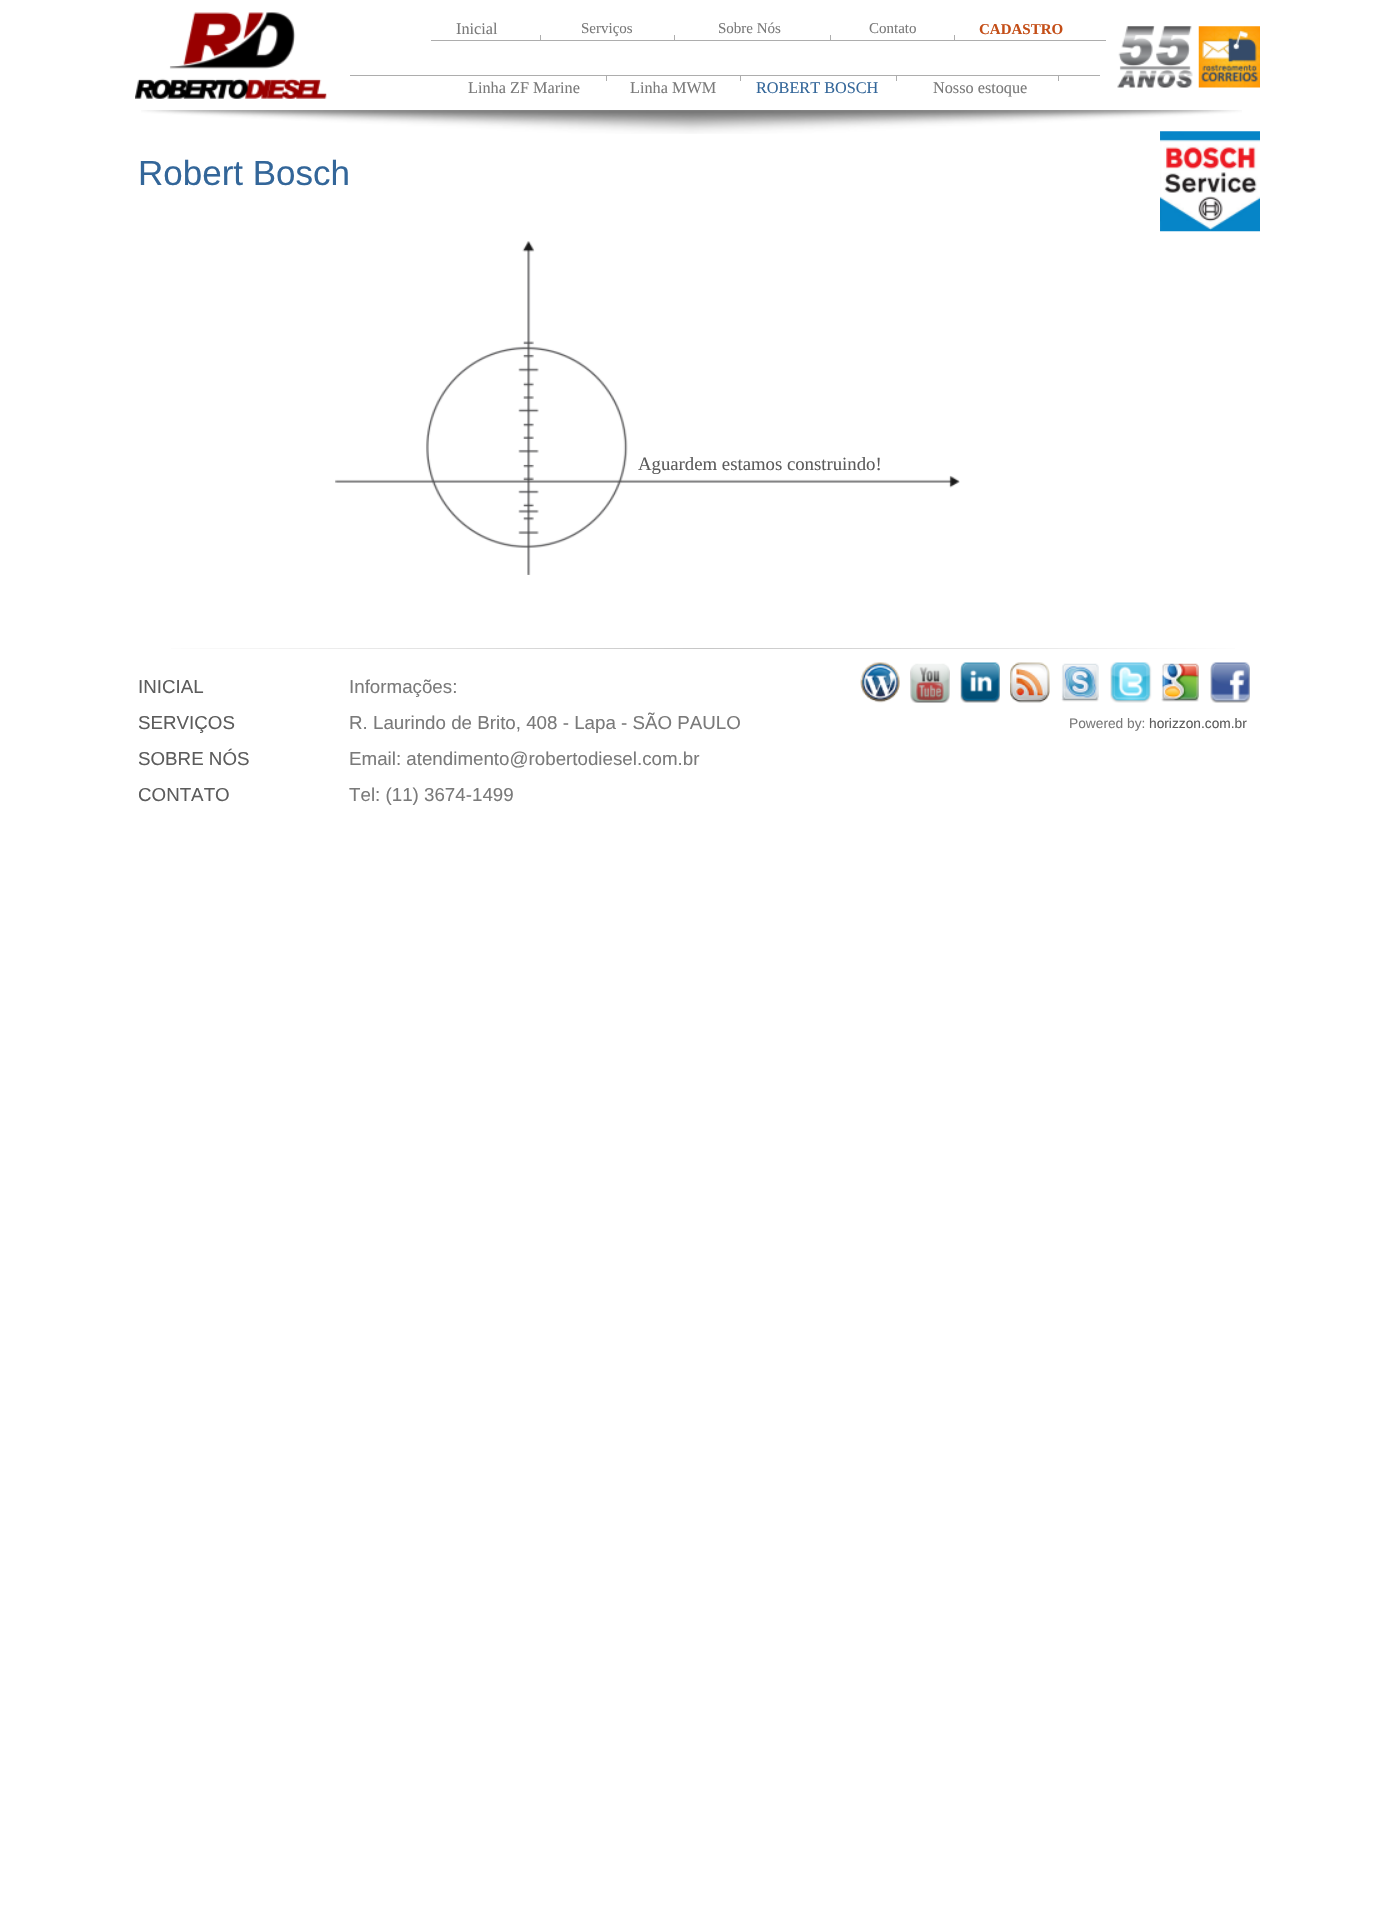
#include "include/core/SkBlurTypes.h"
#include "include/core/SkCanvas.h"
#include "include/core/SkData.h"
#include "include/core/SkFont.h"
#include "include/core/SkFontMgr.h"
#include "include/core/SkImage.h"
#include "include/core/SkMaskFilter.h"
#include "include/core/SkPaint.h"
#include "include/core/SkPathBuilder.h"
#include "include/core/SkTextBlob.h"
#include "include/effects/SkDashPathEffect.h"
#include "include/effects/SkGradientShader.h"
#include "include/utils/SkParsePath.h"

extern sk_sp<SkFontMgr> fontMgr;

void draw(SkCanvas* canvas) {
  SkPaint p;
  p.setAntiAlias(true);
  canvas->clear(SK_ColorWHITE);
  canvas->drawImageRect(SkImages::DeferredFromEncodedData(SkData::MakeFromFileName("images/1.png")), SkRect::MakeLTRB(135, 12, 327, 99), SkSamplingOptions());
  p.setColor(SkColorSetRGB(173, 173, 173));
  canvas->drawRect(SkRect::MakeLTRB(431, 40, 1106, 41), p);
  canvas->drawRect(SkRect::MakeLTRB(540, 35, 541, 41), p);
  canvas->drawRect(SkRect::MakeLTRB(674, 35, 675, 41), p);
  canvas->drawRect(SkRect::MakeLTRB(830, 35, 831, 41), p);
  canvas->drawRect(SkRect::MakeLTRB(954, 35, 955, 41), p);
  canvas->drawImageRect(SkImages::DeferredFromEncodedData(SkData::MakeFromFileName("images/2.png")), SkRect::MakeLTRB(1117, 26, 1193, 88), SkSamplingOptions());
  canvas->drawImageRect(SkImages::DeferredFromEncodedData(SkData::MakeFromFileName("images/3.png")), SkRect::MakeLTRB(1198, 26, 1260, 88), SkSamplingOptions());
  canvas->drawRect(SkRect::MakeLTRB(350, 75, 1100, 76), p);
  canvas->drawRect(SkRect::MakeLTRB(606, 75, 607, 81), p);
  canvas->drawRect(SkRect::MakeLTRB(740, 75, 741, 81), p);
  canvas->drawRect(SkRect::MakeLTRB(896, 75, 897, 81), p);
  canvas->drawRect(SkRect::MakeLTRB(1058, 75, 1059, 81), p);
  canvas->drawImageRect(SkImages::DeferredFromEncodedData(SkData::MakeFromFileName("images/4.png")), SkRect::MakeLTRB(141, 110, 1242, 134), SkSamplingOptions());
  canvas->drawImageRect(SkImages::DeferredFromEncodedData(SkData::MakeFromFileName("images/5.png")), SkRect::MakeLTRB(1160, 131, 1260, 232), SkSamplingOptions());
  {
    const SkColor colors[] = {SkColorSetRGB(199, 199, 199), SK_ColorWHITE};
    const float stops[] = {0, 1};
    const SkPoint ends[] = {{698, 649}, {146, 649}};
    p.setShader(SkGradientShader::MakeLinear(ends, colors, stops, 2, SkTileMode::kClamp));
    p.setAlpha(255);
  }
  canvas->drawRect(SkRect::MakeLTRB(171, 648, 698, 649), p);
  {
    const SkColor colors[] = {SkColorSetRGB(199, 199, 199), SK_ColorWHITE};
    const float stops[] = {0, 1};
    const SkPoint ends[] = {{709, 648}, {1260, 648}};
    p.setShader(SkGradientShader::MakeLinear(ends, colors, stops, 2, SkTileMode::kClamp));
    p.setAlpha(255);
  }
  canvas->drawRect(SkRect::MakeLTRB(698, 648, 1235, 649), p);
  canvas->drawImageRect(SkImages::DeferredFromEncodedData(SkData::MakeFromFileName("images/7.png")), SkRect::MakeLTRB(860, 662, 900, 703), SkSamplingOptions());
  canvas->drawImageRect(SkImages::DeferredFromEncodedData(SkData::MakeFromFileName("images/8.png")), SkRect::MakeLTRB(910, 663, 950, 703), SkSamplingOptions());
  canvas->drawImageRect(SkImages::DeferredFromEncodedData(SkData::MakeFromFileName("images/9.png")), SkRect::MakeLTRB(960, 662, 1000, 703), SkSamplingOptions());
  canvas->drawImageRect(SkImages::DeferredFromEncodedData(SkData::MakeFromFileName("images/10.png")), SkRect::MakeLTRB(1010, 662, 1050, 703), SkSamplingOptions());
  canvas->drawImageRect(SkImages::DeferredFromEncodedData(SkData::MakeFromFileName("images/11.png")), SkRect::MakeLTRB(1061, 663, 1099, 702), SkSamplingOptions());
  canvas->drawImageRect(SkImages::DeferredFromEncodedData(SkData::MakeFromFileName("images/12.png")), SkRect::MakeLTRB(1110, 662, 1152, 703), SkSamplingOptions());
  canvas->drawImageRect(SkImages::DeferredFromEncodedData(SkData::MakeFromFileName("images/13.png")), SkRect::MakeLTRB(1161, 663, 1199, 702), SkSamplingOptions());
  canvas->drawImageRect(SkImages::DeferredFromEncodedData(SkData::MakeFromFileName("images/14.png")), SkRect::MakeLTRB(1210, 662, 1250, 703), SkSamplingOptions());
  SkFont font1(fontMgr->matchFamilyStyle("Liberation Serif", SkFontStyle::Normal()), 16.25f);
  font1.setSubpixel(true);
  p.setShader(nullptr);
  p.setColor(SkColorSetRGB(122, 122, 122));
  canvas->drawString("Inicial", 456, 34, font1, p);
  SkFont font2(fontMgr->matchFamilyStyle("Liberation Serif", SkFontStyle::Normal()), 15);
  font2.setSubpixel(true);
  canvas->drawString("Serviços", 581, 33, font2, p);
  canvas->drawString("Sobre Nós", 718, 33, font2, p);
  canvas->drawString("Contato", 869, 33, font2, p);
  SkFont font3(fontMgr->matchFamilyStyle("Liberation Serif", SkFontStyle::Bold()), 15);
  font3.setSubpixel(true);
  p.setColor(SkColorSetRGB(196, 78, 23));
  canvas->drawString("CADASTRO", 979, 34, font3, p);
  p.setColor(SkColorSetRGB(122, 122, 122));
  canvas->drawString("Linha ZF Marine", 468, 93, font1, p);
  canvas->drawString("Linha MWM", 630, 93, font1, p);
  p.setColor(SkColorSetRGB(51, 102, 153));
  canvas->drawString("ROBERT BOSCH", 756, 93, font1, p);
  p.setColor(SkColorSetRGB(122, 122, 122));
  canvas->drawString("Nosso estoque", 933, 93, font1, p);
  SkFont font4(fontMgr->matchFamilyStyle("Liberation Sans", SkFontStyle::Normal()), 35);
  font4.setSubpixel(true);
  p.setColor(SkColorSetRGB(51, 102, 153));
  canvas->drawString("Robert Bosch", 138, 185, font4, p);
  SkFont font5(fontMgr->matchFamilyStyle("Liberation Serif", SkFontStyle::Normal()), 18.75f);
  font5.setSubpixel(true);
  p.setColor(SkColorSetRGB(92, 92, 92));
  canvas->drawString("Aguardem estamos construindo!", 638, 470, font5, p);
  canvas->drawImageRect(SkImages::DeferredFromEncodedData(SkData::MakeFromFileName("images/6.png")), SkRect::MakeLTRB(335, 241, 960, 575), SkSamplingOptions());
  SkFont font6(fontMgr->matchFamilyStyle("Liberation Sans", SkFontStyle::Normal()), 18.75f);
  font6.setSubpixel(true);
  canvas->drawString("INICIAL", 138, 693, font6, p);
  p.setColor(SkColorSetRGB(122, 122, 122));
  canvas->drawString("Informações:", 349, 693, font6, p);
  p.setColor(SkColorSetRGB(92, 92, 92));
  canvas->drawString("SERVIÇOS", 138, 729, font6, p);
  p.setColor(SkColorSetRGB(122, 122, 122));
  canvas->drawString("R. Laurindo de Brito, 408 - Lapa - SÃO PAULO", 349, 729, font6, p);
  SkFont font7(fontMgr->matchFamilyStyle("Liberation Sans", SkFontStyle::Normal()), 13.75f);
  font7.setSubpixel(true);
  canvas->drawString("Powered by:", 1069, 728, font7, p);
  p.setColor(SkColorSetRGB(92, 92, 92));
  canvas->drawString("horizzon.com.br", 1149, 728, font7, p);
  canvas->drawString("SOBRE NÓS", 138, 765, font6, p);
  p.setColor(SkColorSetRGB(122, 122, 122));
  canvas->drawString("Email: atendimento@robertodiesel.com.br", 349, 765, font6, p);
  p.setColor(SkColorSetRGB(92, 92, 92));
  canvas->drawString("CONTATO", 138, 801, font6, p);
  p.setColor(SkColorSetRGB(122, 122, 122));
  canvas->drawString("Tel: (11) 3674-1499", 349, 801, font6, p);
}
